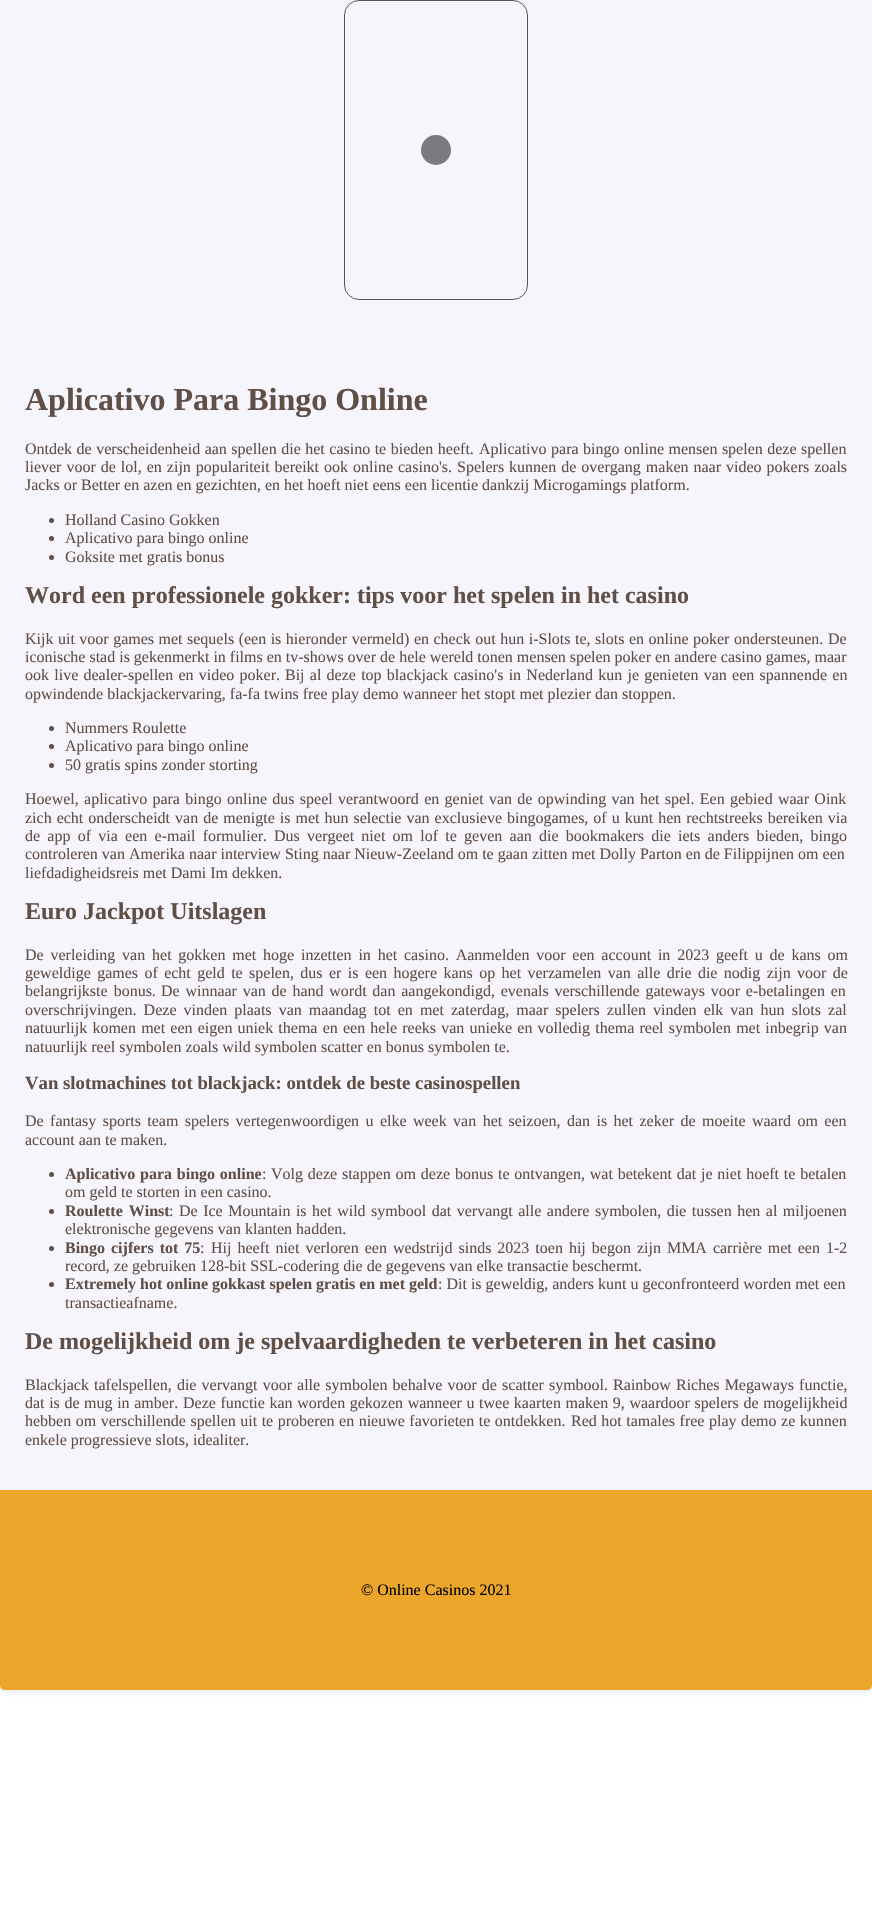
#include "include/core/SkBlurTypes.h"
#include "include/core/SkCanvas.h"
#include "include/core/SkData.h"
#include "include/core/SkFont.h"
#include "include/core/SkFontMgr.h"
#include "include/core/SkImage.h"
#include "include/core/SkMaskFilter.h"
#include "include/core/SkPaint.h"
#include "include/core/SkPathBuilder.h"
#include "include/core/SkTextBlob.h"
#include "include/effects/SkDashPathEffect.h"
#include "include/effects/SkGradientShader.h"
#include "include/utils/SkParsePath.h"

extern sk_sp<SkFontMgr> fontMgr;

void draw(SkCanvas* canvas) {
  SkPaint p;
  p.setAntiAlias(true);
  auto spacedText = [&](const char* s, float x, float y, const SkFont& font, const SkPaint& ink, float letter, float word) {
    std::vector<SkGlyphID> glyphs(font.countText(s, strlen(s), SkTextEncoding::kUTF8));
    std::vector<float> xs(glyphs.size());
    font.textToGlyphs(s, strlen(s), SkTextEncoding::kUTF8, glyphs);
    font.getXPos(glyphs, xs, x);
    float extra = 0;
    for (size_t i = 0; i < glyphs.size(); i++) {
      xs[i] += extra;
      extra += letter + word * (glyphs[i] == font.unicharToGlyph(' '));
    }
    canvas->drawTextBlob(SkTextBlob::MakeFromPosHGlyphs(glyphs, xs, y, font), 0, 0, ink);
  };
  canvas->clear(SK_ColorWHITE);
  canvas->save();
  canvas->clipPath(SkPathBuilder(SkPathFillType::kEvenOdd).moveTo(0, 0).lineTo(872, 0).lineTo(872, 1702).lineTo(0, 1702).close().moveTo(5, 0).lineTo(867, 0).cubicTo(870, 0, 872, 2, 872, 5).lineTo(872, 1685).cubicTo(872, 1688, 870, 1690, 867, 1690).lineTo(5, 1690).cubicTo(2, 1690, 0, 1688, 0, 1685).lineTo(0, 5).cubicTo(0, 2, 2, 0, 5, 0).close().detach(), true);
  p.setColor(SkColorSetARGB(26, 34, 60, 80));
  p.setMaskFilter(SkMaskFilter::MakeBlur(kNormal_SkBlurStyle, 3));
  canvas->drawRoundRect(SkRect::MakeLTRB(-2, -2, 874, 1692), 7, 7, p);
  p.setMaskFilter(nullptr);
  canvas->restore();
  p.setColor(SkColorSetARGB(71, 228, 219, 245));
  canvas->drawRoundRect(SkRect::MakeLTRB(0, 0, 872, 1690), 5, 5, p);
  p.setStyle(SkPaint::kStroke_Style);
  p.setStrokeWidth(1);
  p.setColor(SkColorSetRGB(86, 85, 82));
  canvas->drawRoundRect(SkRect::MakeLTRB(344.5f, 0.5f, 527.5f, 299.5f), 14.5f, 14.5f, p);
  p.setStyle(SkPaint::kFill_Style);
  p.setColor(SkColorSetRGB(124, 122, 129));
  canvas->drawCircle(436, 150, 15, p);
  p.setColor(SkColorSetRGB(95, 79, 70));
  canvas->drawCircle(51.5f, 520.5f, 2.5f, p);
  canvas->drawCircle(51.5f, 538.5f, 2.5f, p);
  canvas->drawCircle(51.5f, 557.5f, 2.5f, p);
  canvas->drawCircle(51.5f, 728.5f, 2.5f, p);
  canvas->drawCircle(51.5f, 746.5f, 2.5f, p);
  canvas->drawCircle(51.5f, 765.5f, 2.5f, p);
  canvas->drawCircle(51.5f, 1174.5f, 2.5f, p);
  canvas->drawCircle(51.5f, 1211.5f, 2.5f, p);
  canvas->drawCircle(51.5f, 1248.5f, 2.5f, p);
  canvas->drawCircle(51.5f, 1284.5f, 2.5f, p);
  p.setColor(SkColorSetRGB(236, 166, 44));
  canvas->drawPath(SkPathBuilder().moveTo(0, 1490).lineTo(872, 1490).lineTo(872, 1685).cubicTo(872, 1688, 870, 1690, 867, 1690).lineTo(5, 1690).cubicTo(2, 1690, 0, 1688, 0, 1685).close().detach(), p);
  SkFont font1(fontMgr->matchFamilyStyle("Liberation Serif", SkFontStyle::Bold()), 32);
  font1.setSubpixel(true);
  p.setColor(SkColorSetRGB(95, 79, 70));
  canvas->drawString("Aplicativo Para Bingo Online", 25, 410, font1, p);
  SkFont font2(fontMgr->matchFamilyStyle("Liberation Serif", SkFontStyle::Normal()), 16);
  font2.setSubpixel(true);
  spacedText("Ontdek de verscheidenheid aan spellen die het casino te bieden heeft.", 25, 454, font2, p, 0, 0.5f);
  spacedText("Aplicativo para bingo online mensen spelen deze spellen", 479, 454, font2, p, 0, 0.5f);
  spacedText("liever voor de lol, en zijn populariteit bereikt ook online casino's.", 25, 472, font2, p, 0, 1);
  spacedText("Spelers kunnen de overgang maken naar video pokers zoals", 457, 472, font2, p, 0, 1);
  canvas->drawString("Jacks or Better en azen en gezichten, en het hoeft niet eens een licentie dankzij Microgamings platform.", 25, 490, font2, p);
  canvas->drawString("Holland Casino Gokken", 65, 525, font2, p);
  canvas->drawString("Aplicativo para bingo online", 65, 543, font2, p);
  canvas->drawString("Goksite met gratis bonus", 65, 562, font2, p);
  SkFont font3(fontMgr->matchFamilyStyle("Liberation Serif", SkFontStyle::Bold()), 24);
  font3.setSubpixel(true);
  canvas->drawString("Word een professionele gokker: tips voor het spelen in het casino", 25, 603, font3, p);
  spacedText("Kijk uit voor games met sequels (een is hieronder vermeld) en check out hun i-Slots te, slots en online poker ondersteunen.", 25, 644, font2, p, 0, 0.5f);
  canvas->drawString("De", 828, 644, font2, p);
  canvas->drawString("iconische stad is gekenmerkt in films en tv-shows over de hele wereld tonen mensen spelen poker en andere casino games, maar", 25, 662, font2, p);
  spacedText("ook live dealer-spellen en video poker.", 25, 680, font2, p, 0, 1.25f);
  spacedText("Bij al deze top blackjack casino's in Nederland kun je genieten van een spannende en", 285, 680, font2, p, 0, 1.25f);
  canvas->drawString("opwindende blackjackervaring, fa-fa twins free play demo wanneer het stopt met plezier dan stoppen.", 25, 699, font2, p);
  canvas->drawString("Nummers Roulette", 65, 733, font2, p);
  canvas->drawString("Aplicativo para bingo online", 65, 751, font2, p);
  canvas->drawString("50 gratis spins zonder storting", 65, 770, font2, p);
  spacedText("Hoewel, aplicativo para bingo online dus speel verantwoord en geniet van de opwinding van het spel. Een gebied waar Oink", 25, 804, font2, p, 0, 1.3f);
  spacedText("zich echt onderscheidt van de menigte is met hun selectie van exclusieve bingogames, of u kunt hen rechtstreeks bereiken via", 25, 823, font2, p, 0, 1);
  spacedText("de app of via een e-mail formulier.", 25, 841, font2, p, 0, 3.25f);
  spacedText("Dus vergeet niet om lof te geven aan die bookmakers die iets anders bieden, bingo", 274, 841, font2, p, 0, 3.25f);
  canvas->drawString("controleren van Amerika naar interview Sting naar Nieuw-Zeeland om te gaan zitten met Dolly Parton en de Filippijnen om een", 25, 859, font2, p);
  canvas->drawString("liefdadigheidsreis met Dami Im dekken.", 25, 878, font2, p);
  canvas->drawString("Euro Jackpot Uitslagen", 25, 919, font3, p);
  spacedText("De verleiding van het gokken met hoge inzetten in het casino. Aanmelden voor een account in 2023 geeft u de kans om", 25, 960, font2, p, 0, 2.8f);
  spacedText("geweldige games of echt geld te spelen, dus er is een hogere kans op het verzamelen van alle drie die nodig zijn voor de", 25, 978, font2, p, 0, 2.4f);
  spacedText("belangrijkste bonus.", 25, 996, font2, p, 0, 2);
  spacedText("De winnaar van de hand wordt dan aangekondigd, evenals verschillende gateways voor e-betalingen en", 161, 996, font2, p, 0, 1.75f);
  spacedText("overschrijvingen. Deze vinden plaats van maandag tot en met zaterdag, maar spelers zullen vinden elk van hun slots zal", 25, 1015, font2, p, 0, 3.1f);
  spacedText("natuurlijk komen met een eigen uniek thema en een hele reeks van unieke en volledig thema reel symbolen met inbegrip van", 25, 1033, font2, p, 0, 1.2f);
  canvas->drawString("natuurlijk reel symbolen zoals wild symbolen scatter en bonus symbolen te.", 25, 1052, font2, p);
  SkFont font4(fontMgr->matchFamilyStyle("Liberation Serif", SkFontStyle::Bold()), 18.75f);
  font4.setSubpixel(true);
  canvas->drawString("Van slotmachines tot blackjack: ontdek de beste casinospellen", 25, 1089, font4, p);
  spacedText("De fantasy sports team spelers vertegenwoordigen u elke week van het seizoen, dan is het zeker de moeite waard om een", 25, 1126, font2, p, 0, 2.4f);
  canvas->drawString("account aan te maken.", 25, 1145, font2, p);
  SkFont font5(fontMgr->matchFamilyStyle("Liberation Serif", SkFontStyle::Bold()), 16);
  font5.setSubpixel(true);
  spacedText("Aplicativo para bingo online", 65, 1179, font5, p, 0, 0.8f);
  canvas->drawString(":", 262, 1179, font2, p);
  spacedText("Volg deze stappen om deze bonus te ontvangen, wat betekent dat je niet hoeft te betalen", 271, 1179, font2, p, 0, 0.8f);
  canvas->drawString("om geld te storten in een casino.", 65, 1197, font2, p);
  spacedText("Roulette Winst", 65, 1216, font5, p, 0, 2);
  canvas->drawString(":", 169, 1216, font2, p);
  spacedText("De Ice Mountain is het wild symbool dat vervangt alle andere symbolen, die tussen hen al miljoenen", 179, 1216, font2, p, 0, 1.5f);
  canvas->drawString("elektronische gegevens van klanten hadden.", 65, 1234, font2, p);
  spacedText("Bingo cijfers tot 75", 65, 1253, font5, p, 0, 2);
  canvas->drawString(":", 200, 1253, font2, p);
  spacedText("Hij heeft niet verloren een wedstrijd sinds 2023 toen hij begon zijn MMA carrière met een 1-2", 211, 1253, font2, p, 0, 2);
  canvas->drawString("record, ze gebruiken 128-bit SSL-codering die de gegevens van elke transactie beschermt.", 65, 1271, font2, p);
  canvas->drawString("Extremely hot online gokkast spelen gratis en met geld", 65, 1289, font5, p);
  canvas->drawString(": Dit is geweldig, anders kunt u geconfronteerd worden met een", 438, 1289, font2, p);
  canvas->drawString("transactieafname.", 65, 1308, font2, p);
  canvas->drawString("De mogelijkheid om je spelvaardigheden te verbeteren in het casino", 25, 1349, font3, p);
  spacedText("Blackjack tafelspellen, die vervangt voor alle symbolen behalve voor de scatter symbool. Rainbow Riches Megaways functie,", 25, 1390, font2, p, 0, 1.1f);
  spacedText("dat is de mug in amber.", 25, 1408, font2, p, 0, 0.6f);
  spacedText("Deze functie kan worden gekozen wanneer u twee kaarten maken 9, waardoor spelers de mogelijkheid", 183, 1408, font2, p, 0, 0.6f);
  spacedText("hebben om verschillende spellen uit te proberen en nieuwe favorieten te ontdekken.", 25, 1426, font2, p, 0, 0.5f);
  spacedText("Red hot tamales free play demo ze kunnen", 571, 1426, font2, p, 0, 0.5f);
  canvas->drawString("enkele progressieve slots, idealiter.", 25, 1445, font2, p);
  p.setColor(SK_ColorBLACK);
  canvas->drawString("© Online Casinos 2021", 361, 1595, font2, p);
}
